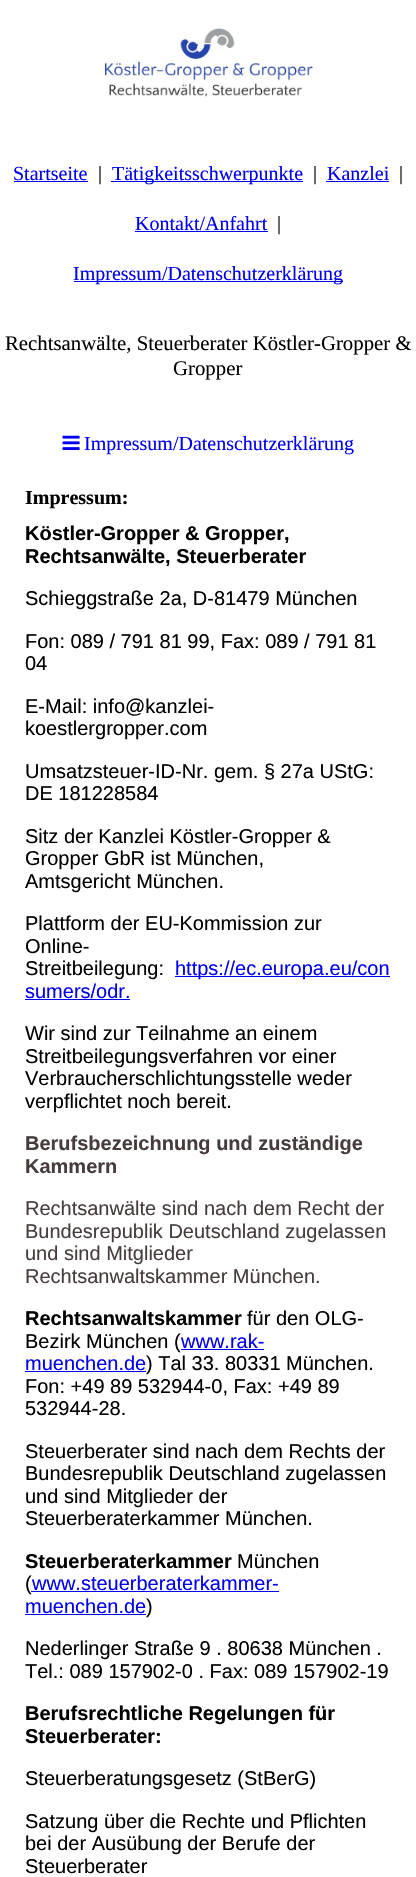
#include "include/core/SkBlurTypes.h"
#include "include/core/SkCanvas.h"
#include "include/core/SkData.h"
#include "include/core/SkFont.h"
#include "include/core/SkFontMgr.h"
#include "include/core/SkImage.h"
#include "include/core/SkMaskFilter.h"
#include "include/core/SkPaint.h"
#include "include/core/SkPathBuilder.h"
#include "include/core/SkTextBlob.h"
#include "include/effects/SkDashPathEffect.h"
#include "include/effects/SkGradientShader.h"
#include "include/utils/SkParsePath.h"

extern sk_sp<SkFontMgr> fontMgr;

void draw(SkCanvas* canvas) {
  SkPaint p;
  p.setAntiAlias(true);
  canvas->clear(SK_ColorWHITE);
  canvas->drawImageRect(SkImages::DeferredFromEncodedData(SkData::MakeFromFileName("images/1.png")), SkRect::MakeLTRB(105, 28, 313, 97), SkSamplingOptions());
  p.setColor(SkColorSetRGB(0, 0, 238));
  canvas->drawRect(SkRect::MakeLTRB(14, 181, 88, 182), p);
  canvas->drawRect(SkRect::MakeLTRB(111, 181, 303, 182), p);
  canvas->drawRect(SkRect::MakeLTRB(326, 181, 389, 182), p);
  canvas->drawRect(SkRect::MakeLTRB(135, 231, 268, 232), p);
  canvas->drawRect(SkRect::MakeLTRB(74, 281, 343, 282), p);
  canvas->drawImageRect(SkImages::DeferredFromEncodedData(SkData::MakeFromFileName("images/2.png")), SkRect::MakeLTRB(62, 435, 80, 450), SkSamplingOptions());
  canvas->drawRect(SkRect::MakeLTRB(175, 976, 390, 977), p);
  canvas->drawRect(SkRect::MakeLTRB(25, 999, 130, 1000), p);
  canvas->drawRect(SkRect::MakeLTRB(181, 1349, 264, 1350), p);
  canvas->drawRect(SkRect::MakeLTRB(25, 1371, 146, 1372), p);
  canvas->drawRect(SkRect::MakeLTRB(25, 1614, 146, 1615), p);
  SkFont font1(fontMgr->matchFamilyStyle("Liberation Serif", SkFontStyle::Normal()), 20);
  font1.setSubpixel(true);
  canvas->drawString("Startseite", 13, 180, font1, p);
  p.setColor(SK_ColorBLACK);
  canvas->drawString("|", 98, 180, font1, p);
  p.setColor(SkColorSetRGB(0, 0, 238));
  canvas->drawString("Tätigkeitsschwerpunkte", 112, 180, font1, p);
  p.setColor(SK_ColorBLACK);
  canvas->drawString("|", 313, 180, font1, p);
  p.setColor(SkColorSetRGB(0, 0, 238));
  canvas->drawString("Kanzlei", 327, 180, font1, p);
  p.setColor(SK_ColorBLACK);
  canvas->drawString("|", 399, 180, font1, p);
  p.setColor(SkColorSetRGB(0, 0, 238));
  canvas->drawString("Kontakt/Anfahrt", 135, 230, font1, p);
  p.setColor(SK_ColorBLACK);
  canvas->drawString("|", 277, 230, font1, p);
  p.setColor(SkColorSetRGB(0, 0, 238));
  canvas->drawString("Impressum/Datenschutzerklärung", 73, 280, font1, p);
  SkFont font2(fontMgr->matchFamilyStyle("Liberation Serif", SkFontStyle::Normal()), 20.8f);
  font2.setSubpixel(true);
  p.setColor(SK_ColorBLACK);
  canvas->drawString("Rechtsanwälte, Steuerberater Köstler-Gropper &", 5, 350, font2, p);
  canvas->drawString("Gropper", 173, 375, font2, p);
  p.setColor(SkColorSetRGB(0, 0, 238));
  canvas->drawString("Impressum/Datenschutzerklärung", 84, 450, font1, p);
  SkFont font3(fontMgr->matchFamilyStyle("Liberation Serif", SkFontStyle::Bold()), 20);
  font3.setSubpixel(true);
  p.setColor(SK_ColorBLACK);
  canvas->drawString("Impressum:", 25, 504, font3, p);
  SkFont font4(fontMgr->matchFamilyStyle("Liberation Sans", SkFontStyle::Bold()), 20);
  font4.setSubpixel(true);
  canvas->drawString("Köstler-Gropper & Gropper,", 25, 540, font4, p);
  canvas->drawString("Rechtsanwälte, Steuerberater", 25, 563, font4, p);
  SkFont font5(fontMgr->matchFamilyStyle("Liberation Sans", SkFontStyle::Normal()), 20);
  font5.setSubpixel(true);
  canvas->drawString("Schieggstraße 2a, D-81479 München", 25, 605, font5, p);
  canvas->drawString("Fon: 089 / 791 81 99, Fax: 089 / 791 81", 25, 648, font5, p);
  canvas->drawString("04", 25, 670, font5, p);
  canvas->drawString("E-Mail: info@kanzlei-", 25, 713, font5, p);
  canvas->drawString("koestlergropper.com", 25, 735, font5, p);
  canvas->drawString("Umsatzsteuer-ID-Nr. gem. § 27a UStG:", 25, 778, font5, p);
  canvas->drawString("DE 181228584", 25, 800, font5, p);
  canvas->drawString("Sitz der Kanzlei Köstler-Gropper &", 25, 843, font5, p);
  canvas->drawString("Gropper GbR ist München,", 25, 865, font5, p);
  canvas->drawString("Amtsgericht München.", 25, 888, font5, p);
  canvas->drawString("Plattform der EU-Kommission zur", 25, 930, font5, p);
  canvas->drawString("Online-", 25, 953, font5, p);
  canvas->drawString("Streitbeilegung:", 25, 975, font5, p);
  p.setColor(SkColorSetRGB(0, 0, 238));
  canvas->drawString("https://ec.europa.eu/con", 175, 975, font5, p);
  canvas->drawString("sumers/odr.", 25, 998, font5, p);
  p.setColor(SK_ColorBLACK);
  canvas->drawString("Wir sind zur Teilnahme an einem", 25, 1040, font5, p);
  canvas->drawString("Streitbeilegungsverfahren vor einer", 25, 1063, font5, p);
  canvas->drawString("Verbraucherschlichtungsstelle weder", 25, 1085, font5, p);
  canvas->drawString("verpflichtet noch bereit.", 25, 1108, font5, p);
  p.setColor(SkColorSetRGB(70, 60, 60));
  canvas->drawString("Berufsbezeichnung und zuständige", 25, 1150, font4, p);
  canvas->drawString("Kammern", 25, 1173, font4, p);
  canvas->drawString("Rechtsanwälte sind nach dem Recht der", 25, 1215, font5, p);
  canvas->drawString("Bundesrepublik Deutschland zugelassen", 25, 1238, font5, p);
  canvas->drawString("und sind Mitglieder", 25, 1260, font5, p);
  canvas->drawString("Rechtsanwaltskammer München.", 25, 1283, font5, p);
  p.setColor(SK_ColorBLACK);
  canvas->drawString("Rechtsanwaltskammer", 25, 1325, font4, p);
  canvas->drawString("für den OLG-", 247, 1325, font5, p);
  canvas->drawString("Bezirk München (", 25, 1348, font5, p);
  p.setColor(SkColorSetRGB(0, 0, 238));
  canvas->drawString("www.rak-", 181, 1348, font5, p);
  canvas->drawString("muenchen.de", 25, 1370, font5, p);
  p.setColor(SK_ColorBLACK);
  canvas->drawString(") Tal 33. 80331 München.", 146, 1370, font5, p);
  canvas->drawString("Fon: +49 89 532944-0, Fax: +49 89", 25, 1393, font5, p);
  canvas->drawString("532944-28.", 25, 1415, font5, p);
  canvas->drawString("Steuerberater sind nach dem Rechts der", 25, 1458, font5, p);
  canvas->drawString("Bundesrepublik Deutschland zugelassen", 25, 1480, font5, p);
  canvas->drawString("und sind Mitglieder der", 25, 1503, font5, p);
  canvas->drawString("Steuerberaterkammer München.", 25, 1525, font5, p);
  canvas->drawString("Steuerberaterkammer", 25, 1568, font4, p);
  canvas->drawString("München", 237, 1568, font5, p);
  canvas->drawString("(", 25, 1590, font5, p);
  p.setColor(SkColorSetRGB(0, 0, 238));
  canvas->drawRect(SkRect::MakeLTRB(31, 1591, 279, 1592), p);
  canvas->drawString("www.steuerberaterkammer-", 32, 1590, font5, p);
  canvas->drawString("muenchen.de", 25, 1613, font5, p);
  p.setColor(SK_ColorBLACK);
  canvas->drawString(")", 146, 1613, font5, p);
  canvas->drawString("Nederlinger Straße 9 . 80638 München .", 25, 1655, font5, p);
  canvas->drawString("Tel.: 089 157902-0 . Fax: 089 157902-19", 25, 1678, font5, p);
  canvas->drawString("Berufsrechtliche Regelungen für", 25, 1720, font4, p);
  canvas->drawString("Steuerberater:", 25, 1743, font4, p);
  canvas->drawString("Steuerberatungsgesetz (StBerG)", 25, 1785, font5, p);
  canvas->drawString("Satzung über die Rechte und Pflichten", 25, 1828, font5, p);
  canvas->drawString("bei der Ausübung der Berufe der", 25, 1850, font5, p);
  canvas->drawString("Steuerberater", 25, 1873, font5, p);
}
